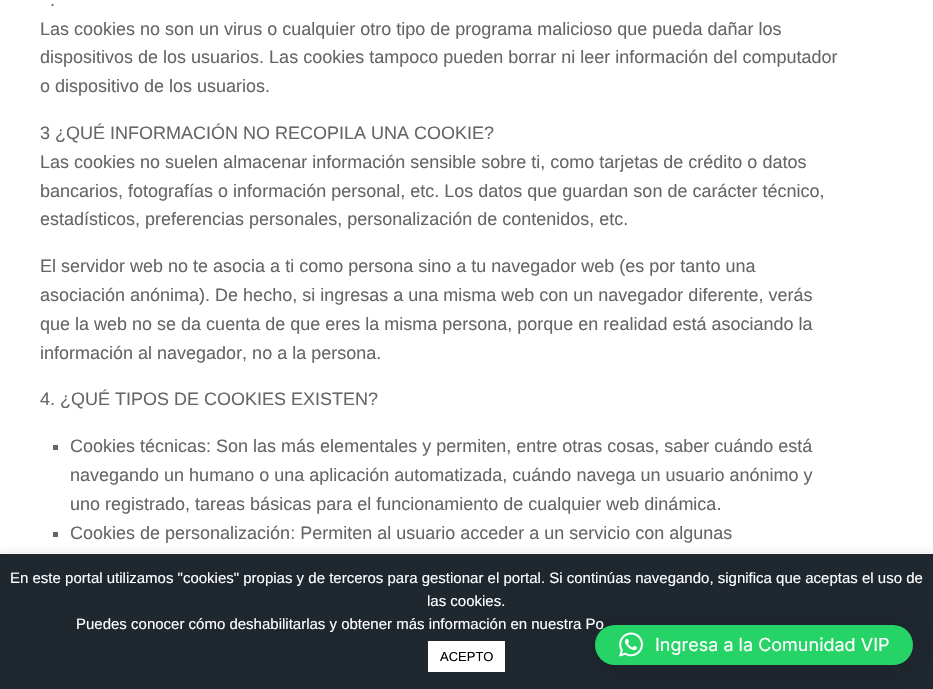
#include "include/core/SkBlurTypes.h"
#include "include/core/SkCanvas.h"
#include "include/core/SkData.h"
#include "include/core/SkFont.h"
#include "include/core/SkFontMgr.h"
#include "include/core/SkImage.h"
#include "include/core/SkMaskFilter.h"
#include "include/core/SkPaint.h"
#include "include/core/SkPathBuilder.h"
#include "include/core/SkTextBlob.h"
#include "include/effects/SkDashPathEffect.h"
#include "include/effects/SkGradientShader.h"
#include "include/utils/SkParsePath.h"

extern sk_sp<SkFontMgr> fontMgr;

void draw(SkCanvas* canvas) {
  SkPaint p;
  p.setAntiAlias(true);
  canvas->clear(SK_ColorWHITE);
  p.setColor(SkColorSetRGB(102, 102, 102));
  canvas->drawRect(SkRect::MakeLTRB(53, 445, 58, 450), p);
  canvas->drawRect(SkRect::MakeLTRB(53, 532, 58, 537), p);
  p.setColor(SkColorSetARGB(77, 172, 171, 171));
  p.setMaskFilter(SkMaskFilter::MakeBlur(kNormal_SkBlurStyle, 5));
  canvas->drawRect(SkRect::MakeLTRB(0, 553, 933, 688), p);
  p.setMaskFilter(nullptr);
  p.setColor(SkColorSetRGB(31, 39, 47));
  canvas->drawRect(SkRect::MakeLTRB(0, 554, 933, 689), p);
  p.setColor(SK_ColorWHITE);
  canvas->drawRect(SkRect::MakeLTRB(428, 641, 505, 672), p);
  p.setColor(SkColorSetARGB(41, 0, 0, 0));
  p.setMaskFilter(SkMaskFilter::MakeBlur(kNormal_SkBlurStyle, 16));
  canvas->drawRoundRect(SkRect::MakeLTRB(595, 627, 913, 667), 20, 20, p);
  p.setMaskFilter(nullptr);
  SkFont font1(fontMgr->matchFamilyStyle("Liberation Sans", SkFontStyle::Normal()), 18);
  font1.setSubpixel(true);
  p.setColor(SkColorSetRGB(102, 102, 102));
  canvas->drawString(".", 50, 6, font1, p);
  canvas->drawString("Las cookies no son un virus o cualquier otro tipo de programa malicioso que pueda dañar los", 40, 35, font1, p);
  canvas->drawString("dispositivos de los usuarios. Las cookies tampoco pueden borrar ni leer información del computador", 40, 63, font1, p);
  canvas->drawString("o dispositivo de los usuarios.", 40, 92, font1, p);
  canvas->drawString("3 ¿QUÉ INFORMACIÓN NO RECOPILA UNA COOKIE?", 40, 139, font1, p);
  canvas->drawString("Las cookies no suelen almacenar información sensible sobre ti, como tarjetas de crédito o datos", 40, 168, font1, p);
  canvas->drawString("bancarios, fotografías o información personal, etc. Los datos que guardan son de carácter técnico,", 40, 197, font1, p);
  canvas->drawString("estadísticos, preferencias personales, personalización de contenidos, etc.", 40, 225, font1, p);
  canvas->drawString("El servidor web no te asocia a ti como persona sino a tu navegador web (es por tanto una", 40, 272, font1, p);
  canvas->drawString("asociación anónima). De hecho, si ingresas a una misma web con un navegador diferente, verás", 40, 301, font1, p);
  canvas->drawString("que la web no se da cuenta de que eres la misma persona, porque en realidad está asociando la", 40, 330, font1, p);
  canvas->drawString("información al navegador, no a la persona.", 40, 359, font1, p);
  canvas->drawString("4. ¿QUÉ TIPOS DE COOKIES EXISTEN?", 40, 405, font1, p);
  canvas->drawString("Cookies técnicas: Son las más elementales y permiten, entre otras cosas, saber cuándo está", 70, 452, font1, p);
  canvas->drawString("navegando un humano o una aplicación automatizada, cuándo navega un usuario anónimo y", 70, 481, font1, p);
  canvas->drawString("uno registrado, tareas básicas para el funcionamiento de cualquier web dinámica.", 70, 510, font1, p);
  canvas->drawString("Cookies de personalización: Permiten al usuario acceder a un servicio con algunas", 70, 539, font1, p);
  SkFont font2(fontMgr->matchFamilyStyle("Liberation Sans", SkFontStyle::Normal()), 15);
  font2.setSubpixel(true);
  p.setColor(SK_ColorWHITE);
  canvas->drawString("En este portal utilizamos \"cookies\" propias y de terceros para gestionar el portal. Si continúas navegando, significa que aceptas el uso de", 10, 583, font2, p);
  canvas->drawString("las cookies.", 427, 606, font2, p);
  canvas->drawString("Puedes conocer cómo deshabilitarlas y obtener más información en nuestra Po", 76, 629, font2, p);
  SkFont font3(fontMgr->matchFamilyStyle("Liberation Sans", SkFontStyle::Normal()), 13);
  font3.setSubpixel(true);
  p.setColor(SK_ColorBLACK);
  canvas->drawString("ACEPTO", 440, 661, font3, p);
  p.setColor(SkColorSetRGB(37, 211, 102));
  canvas->drawRoundRect(SkRect::MakeLTRB(595, 625, 913, 665), 20, 20, p);
  canvas->drawImageRect(SkImages::DeferredFromEncodedData(SkData::MakeFromFileName("images/1.png")), SkRect::MakeLTRB(619, 632, 643, 657), SkSamplingOptions());
  SkFont font4(fontMgr->matchFamilyStyle("Inter", SkFontStyle::Normal()), 18);
  font4.setSubpixel(true);
  p.setColor(SK_ColorWHITE);
  canvas->drawString("Ingresa a la Comunidad VIP", 655, 651, font4, p);
}
